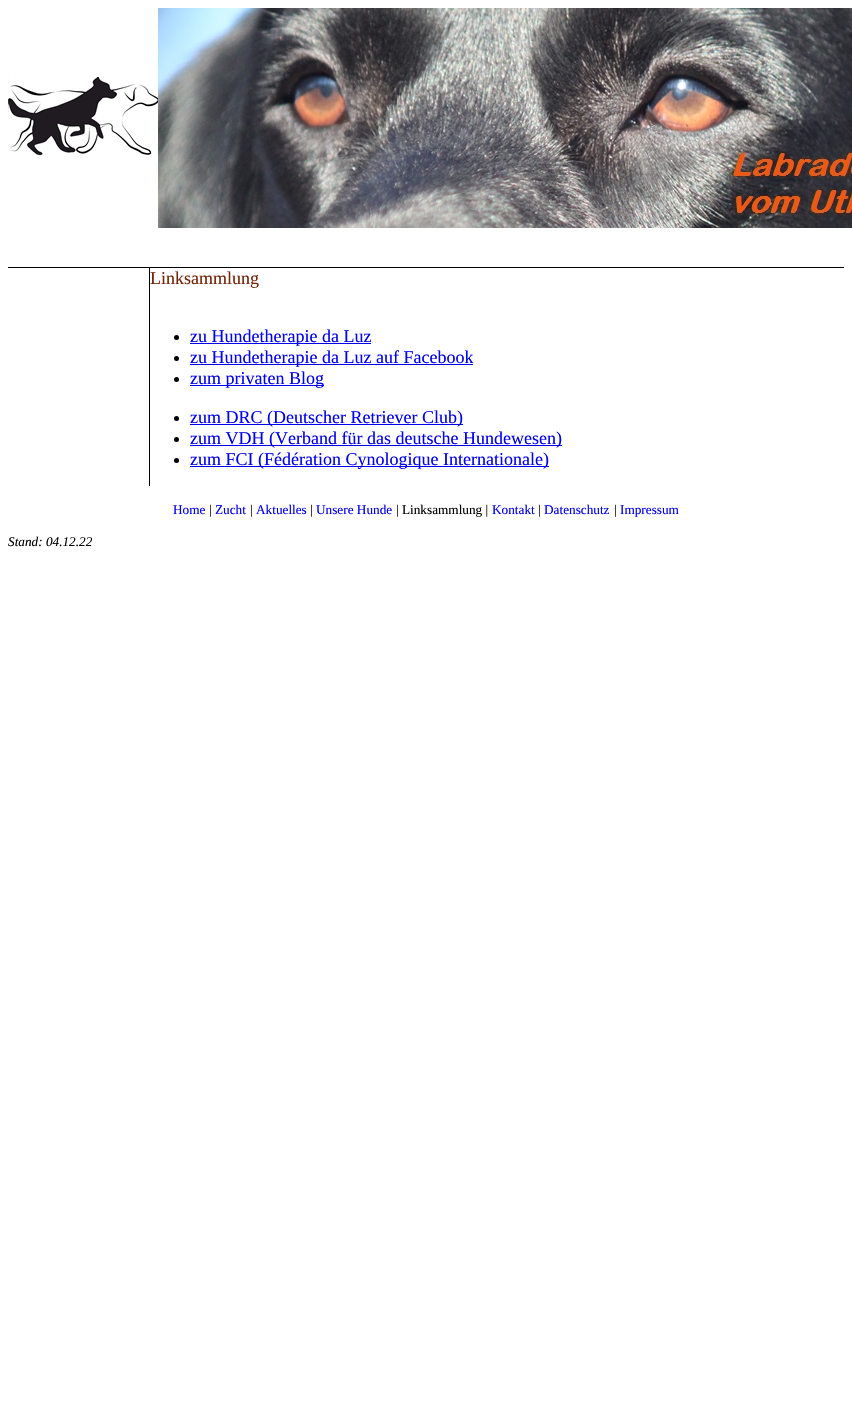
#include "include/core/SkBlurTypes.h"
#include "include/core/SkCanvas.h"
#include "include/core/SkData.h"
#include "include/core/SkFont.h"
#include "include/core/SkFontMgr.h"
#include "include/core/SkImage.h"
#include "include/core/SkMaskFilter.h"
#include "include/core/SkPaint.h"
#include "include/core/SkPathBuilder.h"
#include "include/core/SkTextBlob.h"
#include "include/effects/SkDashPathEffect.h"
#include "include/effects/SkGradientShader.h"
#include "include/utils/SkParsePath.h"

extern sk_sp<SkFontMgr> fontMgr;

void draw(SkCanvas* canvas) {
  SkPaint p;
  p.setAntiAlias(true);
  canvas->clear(SK_ColorWHITE);
  canvas->drawImageRect(SkImages::DeferredFromEncodedData(SkData::MakeFromFileName("images/1.png")), SkRect::MakeLTRB(8, 77, 158, 156), SkSamplingOptions());
  canvas->drawImageRect(SkImages::DeferredFromEncodedData(SkData::MakeFromFileName("images/2.png")), SkRect::MakeLTRB(158, 8, 852, 228), SkSamplingOptions());
  p.setColor(SK_ColorBLACK);
  canvas->drawRect(SkRect::MakeLTRB(8, 267, 844, 268), p);
  canvas->drawRect(SkRect::MakeLTRB(149, 268, 150, 486), p);
  canvas->drawCircle(176.5f, 337.5f, 2.5f, p);
  p.setColor(SkColorSetRGB(0, 0, 238));
  canvas->drawRect(SkRect::MakeLTRB(190, 343, 371, 344), p);
  p.setColor(SK_ColorBLACK);
  canvas->drawCircle(176.5f, 358.5f, 2.5f, p);
  p.setColor(SkColorSetRGB(0, 0, 238));
  canvas->drawRect(SkRect::MakeLTRB(190, 364, 473, 365), p);
  p.setColor(SK_ColorBLACK);
  canvas->drawCircle(176.5f, 379.5f, 2.5f, p);
  p.setColor(SkColorSetRGB(0, 0, 238));
  canvas->drawRect(SkRect::MakeLTRB(190, 385, 324, 386), p);
  p.setColor(SK_ColorBLACK);
  canvas->drawCircle(176.5f, 418.5f, 2.5f, p);
  p.setColor(SkColorSetRGB(0, 0, 238));
  canvas->drawRect(SkRect::MakeLTRB(190, 424, 463, 425), p);
  p.setColor(SK_ColorBLACK);
  canvas->drawCircle(176.5f, 439.5f, 2.5f, p);
  p.setColor(SkColorSetRGB(0, 0, 238));
  canvas->drawRect(SkRect::MakeLTRB(190, 445, 562, 446), p);
  p.setColor(SK_ColorBLACK);
  canvas->drawCircle(176.5f, 460.5f, 2.5f, p);
  p.setColor(SkColorSetRGB(0, 0, 238));
  canvas->drawRect(SkRect::MakeLTRB(190, 466, 549, 467), p);
  SkFont font1(fontMgr->matchFamilyStyle("Liberation Serif", SkFontStyle::Normal()), 18);
  font1.setSubpixel(true);
  p.setColor(SkColorSetRGB(115, 34, 6));
  canvas->drawString("Linksammlung", 150, 284, font1, p);
  p.setColor(SkColorSetRGB(0, 0, 238));
  canvas->drawString("zu Hundetherapie da Luz", 190, 342, font1, p);
  canvas->drawString("zu Hundetherapie da Luz auf Facebook", 190, 363, font1, p);
  canvas->drawString("zum privaten Blog", 190, 384, font1, p);
  canvas->drawString("zum DRC (Deutscher Retriever Club)", 190, 423, font1, p);
  canvas->drawString("zum VDH (Verband für das deutsche Hundewesen)", 190, 444, font1, p);
  canvas->drawString("zum FCI (Fédération Cynologique Internationale)", 190, 465, font1, p);
  SkFont font2(fontMgr->matchFamilyStyle("Liberation Serif", SkFontStyle::Normal()), 13.25f);
  font2.setSubpixel(true);
  canvas->drawString("Home", 173, 514, font2, p);
  p.setColor(SK_ColorBLACK);
  canvas->drawString("|", 209, 514, font2, p);
  p.setColor(SkColorSetRGB(0, 0, 238));
  canvas->drawString("Zucht", 215, 514, font2, p);
  p.setColor(SK_ColorBLACK);
  canvas->drawString("|", 250, 514, font2, p);
  p.setColor(SkColorSetRGB(0, 0, 238));
  canvas->drawString("Aktuelles", 256, 514, font2, p);
  p.setColor(SK_ColorBLACK);
  canvas->drawString("|", 310, 514, font2, p);
  p.setColor(SkColorSetRGB(0, 0, 238));
  canvas->drawString("Unsere Hunde", 316, 514, font2, p);
  p.setColor(SK_ColorBLACK);
  canvas->drawString("| Linksammlung |", 396, 514, font2, p);
  p.setColor(SkColorSetRGB(0, 0, 238));
  canvas->drawString("Kontakt", 492, 514, font2, p);
  p.setColor(SK_ColorBLACK);
  canvas->drawString("|", 538, 514, font2, p);
  p.setColor(SkColorSetRGB(0, 0, 238));
  canvas->drawString("Datenschutz", 544, 514, font2, p);
  p.setColor(SK_ColorBLACK);
  canvas->drawString("|", 614, 514, font2, p);
  p.setColor(SkColorSetRGB(0, 0, 238));
  canvas->drawString("Impressum", 620, 514, font2, p);
  SkFont font3(fontMgr->matchFamilyStyle("Liberation Serif", SkFontStyle::Italic()), 13.25f);
  font3.setSubpixel(true);
  p.setColor(SK_ColorBLACK);
  canvas->drawString("Stand: 04.12.22", 8, 546, font3, p);
}
